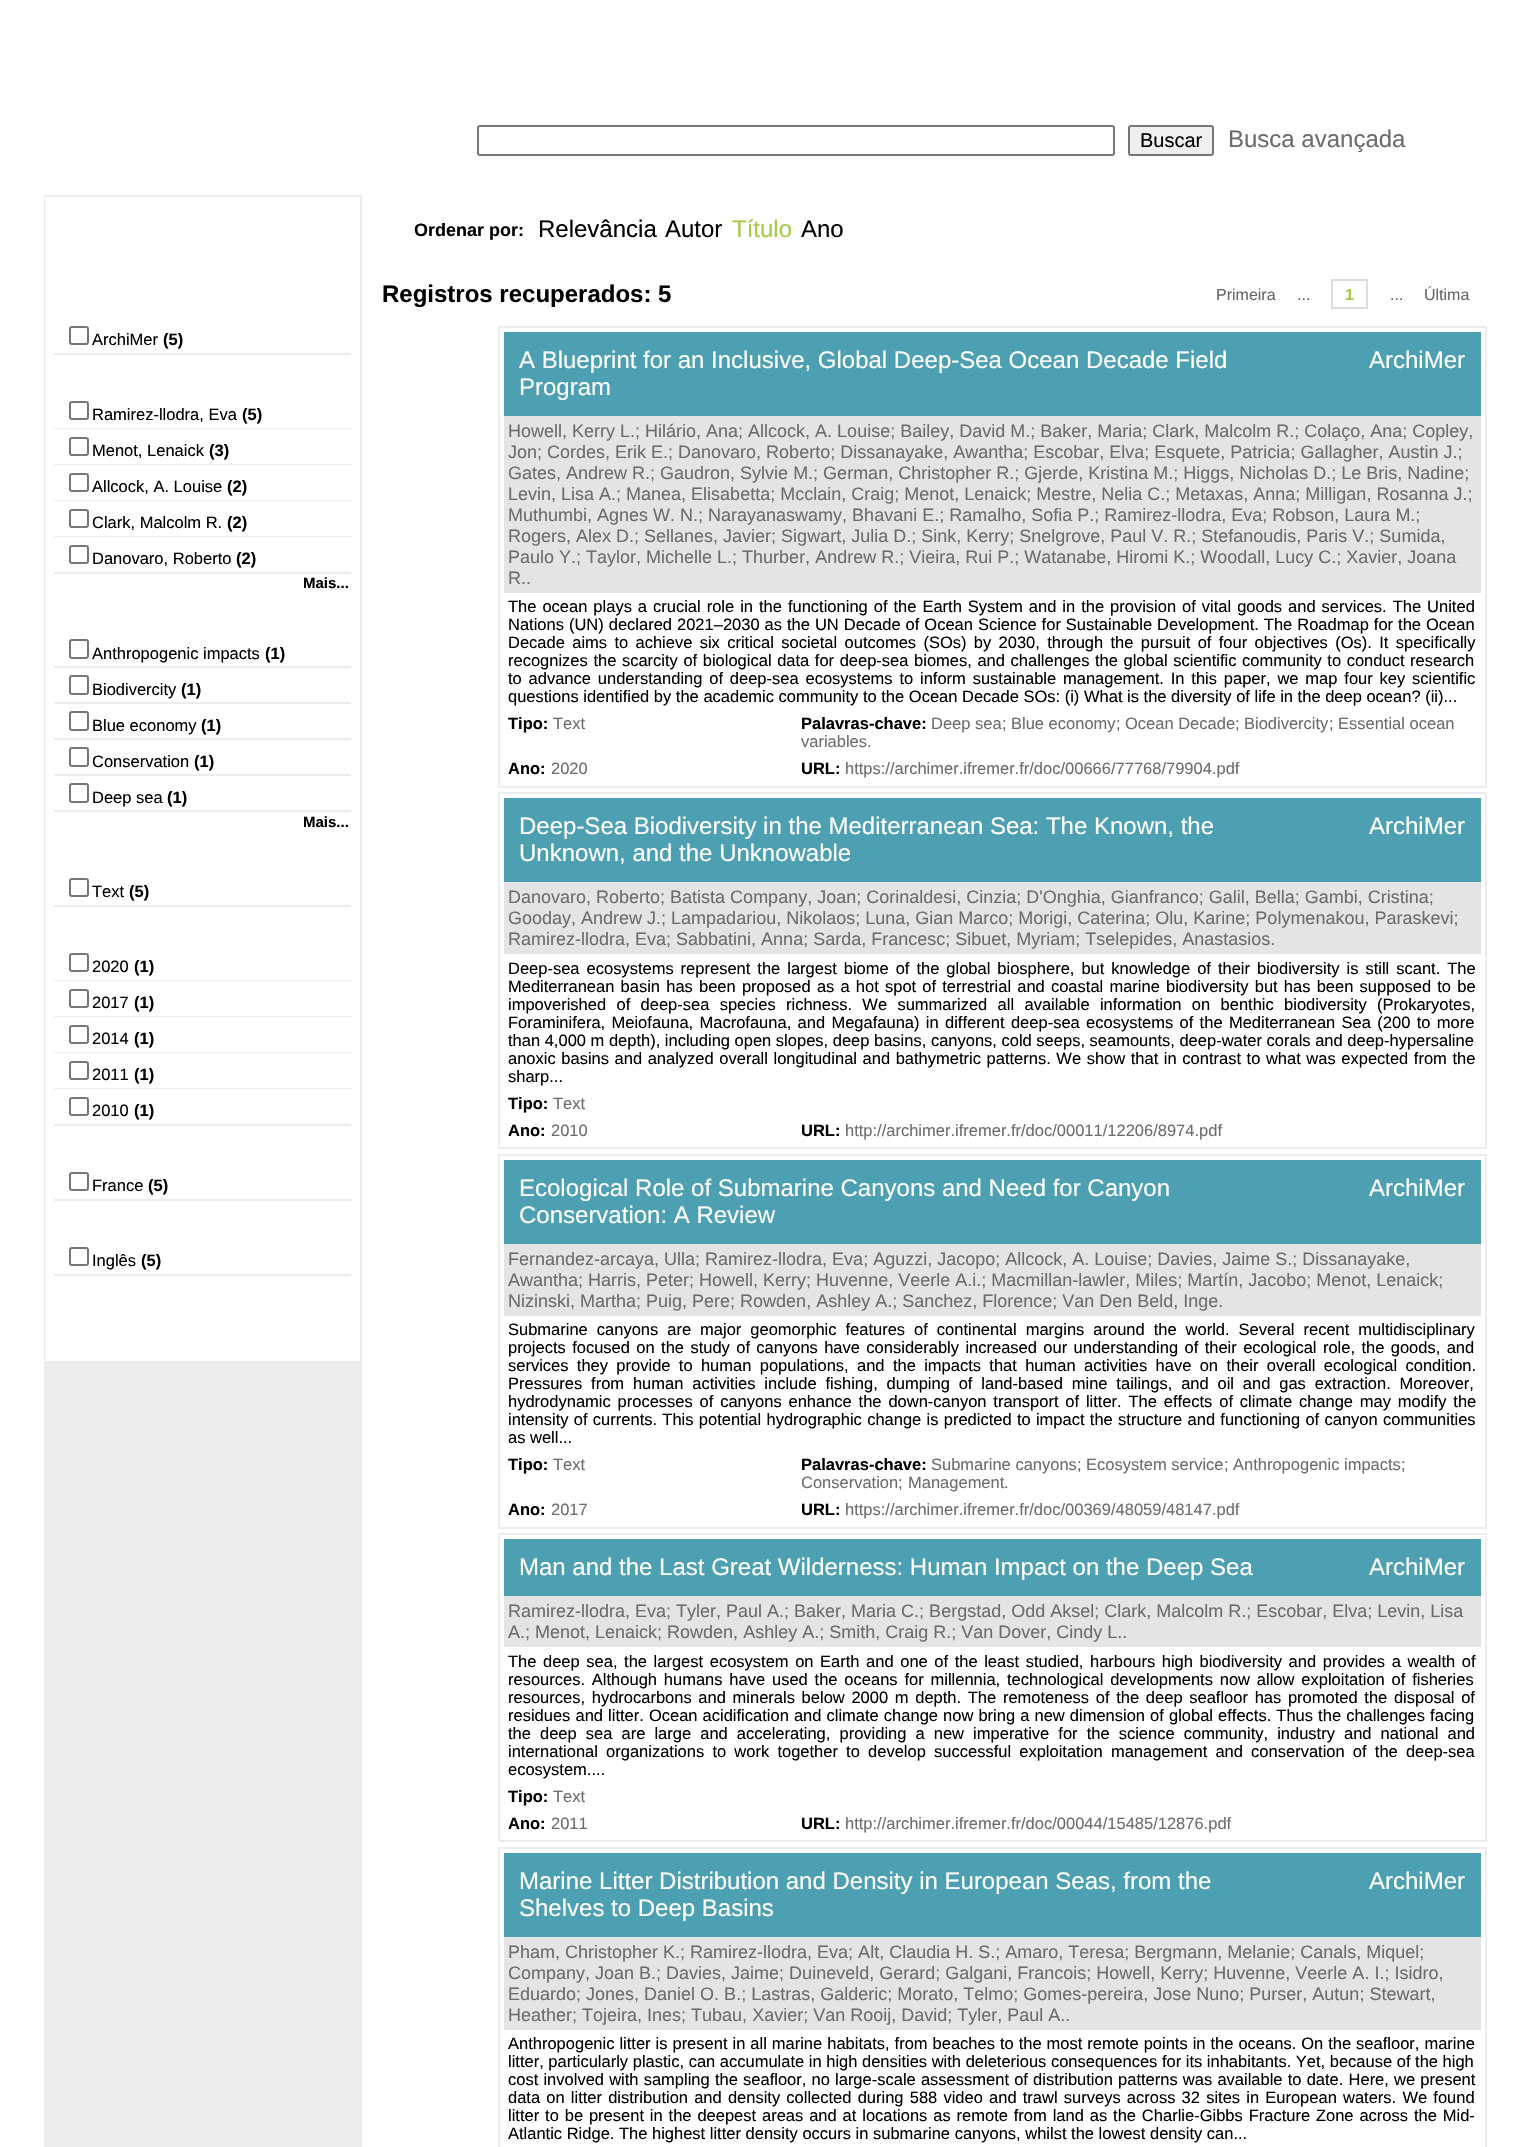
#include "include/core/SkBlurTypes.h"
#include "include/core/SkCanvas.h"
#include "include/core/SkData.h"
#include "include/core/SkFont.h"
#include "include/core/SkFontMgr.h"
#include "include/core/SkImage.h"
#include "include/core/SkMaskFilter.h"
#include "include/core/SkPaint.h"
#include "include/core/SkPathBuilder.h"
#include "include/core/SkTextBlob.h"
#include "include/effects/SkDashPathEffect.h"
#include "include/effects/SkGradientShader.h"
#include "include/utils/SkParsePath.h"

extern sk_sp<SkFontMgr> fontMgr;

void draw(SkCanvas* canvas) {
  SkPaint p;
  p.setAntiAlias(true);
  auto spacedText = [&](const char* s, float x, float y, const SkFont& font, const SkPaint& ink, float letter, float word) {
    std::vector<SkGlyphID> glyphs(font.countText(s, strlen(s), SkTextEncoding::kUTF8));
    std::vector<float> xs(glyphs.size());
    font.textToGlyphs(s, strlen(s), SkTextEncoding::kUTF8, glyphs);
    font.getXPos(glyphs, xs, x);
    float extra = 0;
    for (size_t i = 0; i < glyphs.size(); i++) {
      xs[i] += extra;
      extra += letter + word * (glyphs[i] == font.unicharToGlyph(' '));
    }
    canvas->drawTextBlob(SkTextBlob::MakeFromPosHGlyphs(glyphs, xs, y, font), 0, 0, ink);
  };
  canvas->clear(SK_ColorWHITE);
  p.setStyle(SkPaint::kStroke_Style);
  p.setStrokeWidth(2);
  p.setColor(SkColorSetRGB(118, 118, 118));
  canvas->drawRoundRect(SkRect::MakeLTRB(478, 126, 1114, 155), 2, 2, p);
  p.setStyle(SkPaint::kFill_Style);
  p.setColor(SkColorSetRGB(239, 239, 239));
  canvas->drawRoundRect(SkRect::MakeLTRB(1129, 126, 1213, 155), 2, 2, p);
  p.setStyle(SkPaint::kStroke_Style);
  p.setColor(SkColorSetRGB(118, 118, 118));
  canvas->drawRoundRect(SkRect::MakeLTRB(1129, 126, 1213, 155), 2, 2, p);
  p.setStyle(SkPaint::kFill_Style);
  p.setColor(SkColorSetRGB(236, 236, 236));
  canvas->drawRect(SkRect::MakeLTRB(44, 195, 362, 2147), p);
  p.setColor(SK_ColorWHITE);
  canvas->drawRect(SkRect::MakeLTRB(45, 197, 360, 1361), p);
  p.setColor(SkColorSetRGB(236, 236, 236));
  canvas->drawRect(SkRect::MakeLTRB(54, 353, 351, 355), p);
  p.setStyle(SkPaint::kStroke_Style);
  p.setColor(SkColorSetRGB(118, 118, 118));
  canvas->drawRoundRect(SkRect::MakeLTRB(70, 327, 88, 344), 2, 2, p);
  p.setStyle(SkPaint::kFill_Style);
  p.setColor(SkColorSetRGB(236, 236, 236));
  canvas->drawRect(SkRect::MakeLTRB(54, 428, 351, 429), p);
  p.setStyle(SkPaint::kStroke_Style);
  p.setColor(SkColorSetRGB(118, 118, 118));
  canvas->drawRoundRect(SkRect::MakeLTRB(70, 402, 88, 419), 2, 2, p);
  p.setStyle(SkPaint::kFill_Style);
  p.setColor(SkColorSetRGB(236, 236, 236));
  canvas->drawRect(SkRect::MakeLTRB(54, 464, 351, 465), p);
  p.setStyle(SkPaint::kStroke_Style);
  p.setColor(SkColorSetRGB(118, 118, 118));
  canvas->drawRoundRect(SkRect::MakeLTRB(70, 438, 88, 455), 2, 2, p);
  p.setStyle(SkPaint::kFill_Style);
  p.setColor(SkColorSetRGB(236, 236, 236));
  canvas->drawRect(SkRect::MakeLTRB(54, 500, 351, 501), p);
  p.setStyle(SkPaint::kStroke_Style);
  p.setColor(SkColorSetRGB(118, 118, 118));
  canvas->drawRoundRect(SkRect::MakeLTRB(70, 474, 88, 491), 2, 2, p);
  p.setStyle(SkPaint::kFill_Style);
  p.setColor(SkColorSetRGB(236, 236, 236));
  canvas->drawRect(SkRect::MakeLTRB(54, 536, 351, 537), p);
  p.setStyle(SkPaint::kStroke_Style);
  p.setColor(SkColorSetRGB(118, 118, 118));
  canvas->drawRoundRect(SkRect::MakeLTRB(70, 510, 88, 527), 2, 2, p);
  p.setStyle(SkPaint::kFill_Style);
  p.setColor(SkColorSetRGB(236, 236, 236));
  canvas->drawRect(SkRect::MakeLTRB(54, 572, 351, 574), p);
  p.setStyle(SkPaint::kStroke_Style);
  p.setColor(SkColorSetRGB(118, 118, 118));
  canvas->drawRoundRect(SkRect::MakeLTRB(70, 546, 88, 563), 2, 2, p);
  p.setStyle(SkPaint::kFill_Style);
  p.setColor(SkColorSetRGB(236, 236, 236));
  canvas->drawRect(SkRect::MakeLTRB(54, 666, 351, 668), p);
  p.setStyle(SkPaint::kStroke_Style);
  p.setColor(SkColorSetRGB(118, 118, 118));
  canvas->drawRoundRect(SkRect::MakeLTRB(70, 640, 88, 658), 2, 2, p);
  p.setStyle(SkPaint::kFill_Style);
  p.setColor(SkColorSetRGB(236, 236, 236));
  canvas->drawRect(SkRect::MakeLTRB(54, 702, 351, 704), p);
  p.setStyle(SkPaint::kStroke_Style);
  p.setColor(SkColorSetRGB(118, 118, 118));
  canvas->drawRoundRect(SkRect::MakeLTRB(70, 676, 88, 694), 2, 2, p);
  p.setStyle(SkPaint::kFill_Style);
  p.setColor(SkColorSetRGB(236, 236, 236));
  canvas->drawRect(SkRect::MakeLTRB(54, 738, 351, 740), p);
  p.setStyle(SkPaint::kStroke_Style);
  p.setColor(SkColorSetRGB(118, 118, 118));
  canvas->drawRoundRect(SkRect::MakeLTRB(70, 712, 88, 730), 2, 2, p);
  p.setStyle(SkPaint::kFill_Style);
  p.setColor(SkColorSetRGB(236, 236, 236));
  canvas->drawRect(SkRect::MakeLTRB(54, 774, 351, 776), p);
  p.setStyle(SkPaint::kStroke_Style);
  p.setColor(SkColorSetRGB(118, 118, 118));
  canvas->drawRoundRect(SkRect::MakeLTRB(70, 748, 88, 766), 2, 2, p);
  p.setStyle(SkPaint::kFill_Style);
  p.setColor(SkColorSetRGB(236, 236, 236));
  canvas->drawRect(SkRect::MakeLTRB(54, 810, 351, 812), p);
  p.setStyle(SkPaint::kStroke_Style);
  p.setColor(SkColorSetRGB(118, 118, 118));
  canvas->drawRoundRect(SkRect::MakeLTRB(70, 784, 88, 802), 2, 2, p);
  p.setStyle(SkPaint::kFill_Style);
  p.setColor(SkColorSetRGB(236, 236, 236));
  canvas->drawRect(SkRect::MakeLTRB(54, 905, 351, 907), p);
  p.setStyle(SkPaint::kStroke_Style);
  p.setColor(SkColorSetRGB(118, 118, 118));
  canvas->drawRoundRect(SkRect::MakeLTRB(70, 879, 88, 896), 2, 2, p);
  p.setStyle(SkPaint::kFill_Style);
  p.setColor(SkColorSetRGB(236, 236, 236));
  canvas->drawRect(SkRect::MakeLTRB(54, 980, 351, 981), p);
  p.setStyle(SkPaint::kStroke_Style);
  p.setColor(SkColorSetRGB(118, 118, 118));
  canvas->drawRoundRect(SkRect::MakeLTRB(70, 954, 88, 971), 2, 2, p);
  p.setStyle(SkPaint::kFill_Style);
  p.setColor(SkColorSetRGB(236, 236, 236));
  canvas->drawRect(SkRect::MakeLTRB(54, 1016, 351, 1017), p);
  p.setStyle(SkPaint::kStroke_Style);
  p.setColor(SkColorSetRGB(118, 118, 118));
  canvas->drawRoundRect(SkRect::MakeLTRB(70, 990, 88, 1007), 2, 2, p);
  p.setStyle(SkPaint::kFill_Style);
  p.setColor(SkColorSetRGB(236, 236, 236));
  canvas->drawRect(SkRect::MakeLTRB(54, 1052, 351, 1053), p);
  p.setStyle(SkPaint::kStroke_Style);
  p.setColor(SkColorSetRGB(118, 118, 118));
  canvas->drawRoundRect(SkRect::MakeLTRB(70, 1026, 88, 1043), 2, 2, p);
  p.setStyle(SkPaint::kFill_Style);
  p.setColor(SkColorSetRGB(236, 236, 236));
  canvas->drawRect(SkRect::MakeLTRB(54, 1088, 351, 1089), p);
  p.setStyle(SkPaint::kStroke_Style);
  p.setColor(SkColorSetRGB(118, 118, 118));
  canvas->drawRoundRect(SkRect::MakeLTRB(70, 1062, 88, 1079), 2, 2, p);
  p.setStyle(SkPaint::kFill_Style);
  p.setColor(SkColorSetRGB(236, 236, 236));
  canvas->drawRect(SkRect::MakeLTRB(54, 1124, 351, 1126), p);
  p.setStyle(SkPaint::kStroke_Style);
  p.setColor(SkColorSetRGB(118, 118, 118));
  canvas->drawRoundRect(SkRect::MakeLTRB(70, 1098, 88, 1115), 2, 2, p);
  p.setStyle(SkPaint::kFill_Style);
  p.setColor(SkColorSetRGB(236, 236, 236));
  canvas->drawRect(SkRect::MakeLTRB(54, 1199, 351, 1201), p);
  p.setStyle(SkPaint::kStroke_Style);
  p.setColor(SkColorSetRGB(118, 118, 118));
  canvas->drawRoundRect(SkRect::MakeLTRB(70, 1173, 88, 1190), 2, 2, p);
  p.setStyle(SkPaint::kFill_Style);
  p.setColor(SkColorSetRGB(236, 236, 236));
  canvas->drawRect(SkRect::MakeLTRB(54, 1274, 351, 1276), p);
  p.setStyle(SkPaint::kStroke_Style);
  p.setColor(SkColorSetRGB(118, 118, 118));
  canvas->drawRoundRect(SkRect::MakeLTRB(70, 1248, 88, 1265), 2, 2, p);
  p.setColor(SkColorSetRGB(221, 221, 221));
  canvas->drawRect(SkRect::MakeLTRB(1332, 280, 1367, 308), p);
  p.setColor(SkColorSetRGB(236, 236, 236));
  canvas->drawRect(SkRect::MakeLTRB(499, 327, 1486, 787), p);
  p.setStyle(SkPaint::kFill_Style);
  p.setColor(SkColorSetRGB(77, 160, 178));
  canvas->drawRect(SkRect::MakeLTRB(504, 332, 1481, 416), p);
  p.setColor(SkColorSetRGB(228, 228, 228));
  canvas->drawRect(SkRect::MakeLTRB(504, 416, 1481, 593), p);
  p.setStyle(SkPaint::kStroke_Style);
  p.setColor(SkColorSetRGB(236, 236, 236));
  canvas->drawRect(SkRect::MakeLTRB(499, 793, 1486, 1148), p);
  p.setStyle(SkPaint::kFill_Style);
  p.setColor(SkColorSetRGB(77, 160, 178));
  canvas->drawRect(SkRect::MakeLTRB(504, 798, 1481, 882), p);
  p.setColor(SkColorSetRGB(228, 228, 228));
  canvas->drawRect(SkRect::MakeLTRB(504, 882, 1481, 954), p);
  p.setStyle(SkPaint::kStroke_Style);
  p.setColor(SkColorSetRGB(236, 236, 236));
  canvas->drawRect(SkRect::MakeLTRB(499, 1155, 1486, 1528), p);
  p.setStyle(SkPaint::kFill_Style);
  p.setColor(SkColorSetRGB(77, 160, 178));
  canvas->drawRect(SkRect::MakeLTRB(504, 1160, 1481, 1244), p);
  p.setColor(SkColorSetRGB(228, 228, 228));
  canvas->drawRect(SkRect::MakeLTRB(504, 1244, 1481, 1316), p);
  p.setStyle(SkPaint::kStroke_Style);
  p.setColor(SkColorSetRGB(236, 236, 236));
  canvas->drawRect(SkRect::MakeLTRB(499, 1534, 1486, 1841), p);
  p.setStyle(SkPaint::kFill_Style);
  p.setColor(SkColorSetRGB(77, 160, 178));
  canvas->drawRect(SkRect::MakeLTRB(504, 1539, 1481, 1596), p);
  p.setColor(SkColorSetRGB(228, 228, 228));
  canvas->drawRect(SkRect::MakeLTRB(504, 1596, 1481, 1647), p);
  p.setStyle(SkPaint::kStroke_Style);
  p.setColor(SkColorSetRGB(236, 236, 236));
  canvas->drawRect(SkRect::MakeLTRB(499, 1848, 1486, 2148), p);
  p.setStyle(SkPaint::kFill_Style);
  p.setColor(SkColorSetRGB(77, 160, 178));
  canvas->drawRect(SkRect::MakeLTRB(504, 1853, 1481, 1937), p);
  p.setColor(SkColorSetRGB(228, 228, 228));
  canvas->drawRect(SkRect::MakeLTRB(504, 1937, 1481, 2030), p);
  SkFont font1(fontMgr->matchFamilyStyle("Liberation Sans", SkFontStyle::Normal()), 20);
  font1.setSubpixel(true);
  p.setColor(SK_ColorBLACK);
  canvas->drawString("Buscar", 1140, 147, font1, p);
  SkFont font2(fontMgr->matchFamilyStyle("Liberation Sans", SkFontStyle::Normal()), 24);
  font2.setSubpixel(true);
  p.setColor(SkColorSetRGB(108, 108, 108));
  canvas->drawString("Busca avançada", 1228, 147, font2, p);
  SkFont font3(fontMgr->matchFamilyStyle("Liberation Sans", SkFontStyle::Normal()), 16.5f);
  font3.setSubpixel(true);
  p.setColor(SK_ColorBLACK);
  canvas->drawString("ArchiMer", 92, 345, font3, p);
  SkFont font4(fontMgr->matchFamilyStyle("Liberation Sans", SkFontStyle::Bold()), 16.5f);
  font4.setSubpixel(true);
  canvas->drawString("(5)", 163, 345, font4, p);
  canvas->drawString("Ramirez-llodra, Eva", 92, 420, font3, p);
  canvas->drawString("(5)", 242, 420, font4, p);
  canvas->drawString("Menot, Lenaick", 92, 456, font3, p);
  canvas->drawString("(3)", 209, 456, font4, p);
  canvas->drawString("Allcock, A. Louise", 92, 492, font3, p);
  canvas->drawString("(2)", 227, 492, font4, p);
  canvas->drawString("Clark, Malcolm R.", 92, 528, font3, p);
  canvas->drawString("(2)", 227, 528, font4, p);
  canvas->drawString("Danovaro, Roberto", 92, 564, font3, p);
  canvas->drawString("(2)", 236, 564, font4, p);
  SkFont font5(fontMgr->matchFamilyStyle("Liberation Sans", SkFontStyle::Bold()), 15);
  font5.setSubpixel(true);
  canvas->drawString("Mais...", 303, 588, font5, p);
  canvas->drawString("Anthropogenic impacts", 92, 659, font3, p);
  canvas->drawString("(1)", 265, 659, font4, p);
  canvas->drawString("Biodivercity", 92, 695, font3, p);
  canvas->drawString("(1)", 181, 695, font4, p);
  canvas->drawString("Blue economy", 92, 731, font3, p);
  canvas->drawString("(1)", 201, 731, font4, p);
  canvas->drawString("Conservation", 92, 767, font3, p);
  canvas->drawString("(1)", 194, 767, font4, p);
  canvas->drawString("Deep sea", 92, 803, font3, p);
  canvas->drawString("(1)", 167, 803, font4, p);
  canvas->drawString("Mais...", 303, 827, font5, p);
  canvas->drawString("Text", 92, 897, font3, p);
  canvas->drawString("(5)", 129, 897, font4, p);
  canvas->drawString("2020", 92, 972, font3, p);
  canvas->drawString("(1)", 134, 972, font4, p);
  canvas->drawString("2017", 92, 1008, font3, p);
  canvas->drawString("(1)", 134, 1008, font4, p);
  canvas->drawString("2014", 92, 1044, font3, p);
  canvas->drawString("(1)", 134, 1044, font4, p);
  canvas->drawString("2011", 92, 1080, font3, p);
  canvas->drawString("(1)", 134, 1080, font4, p);
  canvas->drawString("2010", 92, 1116, font3, p);
  canvas->drawString("(1)", 134, 1116, font4, p);
  canvas->drawString("France", 92, 1191, font3, p);
  canvas->drawString("(5)", 148, 1191, font4, p);
  canvas->drawString("Inglês", 92, 1266, font3, p);
  canvas->drawString("(5)", 141, 1266, font4, p);
  SkFont font6(fontMgr->matchFamilyStyle("Liberation Sans", SkFontStyle::Bold()), 18);
  font6.setSubpixel(true);
  canvas->drawString("Ordenar por:", 414, 236, font6, p);
  canvas->drawString("Relevância", 538, 237, font2, p);
  canvas->drawString("Autor", 665, 237, font2, p);
  p.setColor(SkColorSetRGB(166, 202, 68));
  canvas->drawString("Título", 732, 237, font2, p);
  p.setColor(SK_ColorBLACK);
  canvas->drawString("Ano", 801, 237, font2, p);
  SkFont font7(fontMgr->matchFamilyStyle("Liberation Sans", SkFontStyle::Bold()), 24);
  font7.setSubpixel(true);
  canvas->drawString("Registros recuperados: 5", 382, 302, font7, p);
  SkFont font8(fontMgr->matchFamilyStyle("Liberation Sans", SkFontStyle::Normal()), 16);
  font8.setSubpixel(true);
  p.setColor(SkColorSetRGB(102, 102, 102));
  canvas->drawString("Primeira", 1216, 300, font8, p);
  canvas->drawString("...", 1297, 300, font8, p);
  SkFont font9(fontMgr->matchFamilyStyle("Liberation Sans", SkFontStyle::Bold()), 16);
  font9.setSubpixel(true);
  p.setColor(SkColorSetRGB(166, 202, 68));
  canvas->drawString("1", 1345, 300, font9, p);
  p.setColor(SkColorSetRGB(102, 102, 102));
  canvas->drawString("...", 1390, 300, font8, p);
  canvas->drawString("Última", 1424, 300, font8, p);
  p.setColor(SK_ColorWHITE);
  canvas->drawString("A Blueprint for an Inclusive, Global Deep-Sea Ocean Decade Field", 519, 368, font2, p);
  canvas->drawString("Program", 519, 395, font2, p);
  canvas->drawString("ArchiMer", 1369, 368, font2, p);
  SkFont font10(fontMgr->matchFamilyStyle("Liberation Sans", SkFontStyle::Normal()), 18);
  font10.setSubpixel(true);
  p.setColor(SkColorSetRGB(108, 108, 108));
  canvas->drawString("Howell, Kerry L.; Hilário, Ana; Allcock, A. Louise; Bailey, David M.; Baker, Maria; Clark, Malcolm R.; Colaço, Ana; Copley,", 508, 437, font10, p);
  canvas->drawString("Jon; Cordes, Erik E.; Danovaro, Roberto; Dissanayake, Awantha; Escobar, Elva; Esquete, Patricia; Gallagher, Austin J.;", 508, 458, font10, p);
  canvas->drawString("Gates, Andrew R.; Gaudron, Sylvie M.; German, Christopher R.; Gjerde, Kristina M.; Higgs, Nicholas D.; Le Bris, Nadine;", 508, 479, font10, p);
  canvas->drawString("Levin, Lisa A.; Manea, Elisabetta; Mcclain, Craig; Menot, Lenaick; Mestre, Nelia C.; Metaxas, Anna; Milligan, Rosanna J.;", 508, 500, font10, p);
  canvas->drawString("Muthumbi, Agnes W. N.; Narayanaswamy, Bhavani E.; Ramalho, Sofia P.; Ramirez-llodra, Eva; Robson, Laura M.;", 508, 521, font10, p);
  canvas->drawString("Rogers, Alex D.; Sellanes, Javier; Sigwart, Julia D.; Sink, Kerry; Snelgrove, Paul V. R.; Stefanoudis, Paris V.; Sumida,", 508, 542, font10, p);
  canvas->drawString("Paulo Y.; Taylor, Michelle L.; Thurber, Andrew R.; Vieira, Rui P.; Watanabe, Hiromi K.; Woodall, Lucy C.; Xavier, Joana", 508, 563, font10, p);
  canvas->drawString("R..", 508, 584, font10, p);
  p.setColor(SK_ColorBLACK);
  spacedText("The ocean plays a crucial role in the functioning of the Earth System and in the provision of vital goods and services. The United", 508, 612, font3, p, 0, 1.4f);
  spacedText("Nations (UN) declared 2021–2030 as the UN Decade of Ocean Science for Sustainable Development. The Roadmap for the Ocean", 508, 630, font3, p, 0, 0.4f);
  spacedText("Decade aims to achieve six critical societal outcomes (SOs) by 2030, through the pursuit of four objectives (Os). It specifically", 508, 648, font3, p, 0, 2.75f);
  spacedText("recognizes the scarcity of biological data for deep-sea biomes, and challenges the global scientific community to conduct research", 508, 666, font3, p, 0, 1);
  spacedText("to advance understanding of deep-sea ecosystems to inform sustainable management. In this paper, we map four key scientific", 508, 684, font3, p, 0, 2.25f);
  canvas->drawString("questions identified by the academic community to the Ocean Decade SOs: (i) What is the diversity of life in the deep ocean? (ii)...", 508, 702, font3, p);
  canvas->drawString("Tipo:", 508, 729, font4, p);
  p.setColor(SkColorSetRGB(108, 108, 108));
  canvas->drawString("Text", 553, 729, font3, p);
  p.setColor(SK_ColorBLACK);
  canvas->drawString("Palavras-chave:", 801, 729, font4, p);
  p.setColor(SkColorSetRGB(108, 108, 108));
  canvas->drawString("Deep sea", 931, 729, font3, p);
  p.setColor(SkColorSetRGB(102, 102, 102));
  canvas->drawString(";", 1002, 729, font3, p);
  p.setColor(SkColorSetRGB(108, 108, 108));
  canvas->drawString("Blue economy", 1011, 729, font3, p);
  p.setColor(SkColorSetRGB(102, 102, 102));
  canvas->drawString(";", 1116, 729, font3, p);
  p.setColor(SkColorSetRGB(108, 108, 108));
  canvas->drawString("Ocean Decade", 1125, 729, font3, p);
  p.setColor(SkColorSetRGB(102, 102, 102));
  canvas->drawString(";", 1235, 729, font3, p);
  p.setColor(SkColorSetRGB(108, 108, 108));
  canvas->drawString("Biodivercity", 1244, 729, font3, p);
  p.setColor(SkColorSetRGB(102, 102, 102));
  canvas->drawString(";", 1329, 729, font3, p);
  p.setColor(SkColorSetRGB(108, 108, 108));
  canvas->drawString("Essential ocean", 1338, 729, font3, p);
  canvas->drawString("variables", 801, 747, font3, p);
  p.setColor(SkColorSetRGB(102, 102, 102));
  canvas->drawString(".", 867, 747, font3, p);
  p.setColor(SK_ColorBLACK);
  canvas->drawString("Ano:", 508, 774, font4, p);
  p.setColor(SkColorSetRGB(108, 108, 108));
  canvas->drawString("2020", 551, 774, font3, p);
  p.setColor(SK_ColorBLACK);
  canvas->drawString("URL:", 801, 774, font4, p);
  p.setColor(SkColorSetRGB(108, 108, 108));
  canvas->drawString("https://archimer.ifremer.fr/doc/00666/77768/79904.pdf", 845, 774, font3, p);
  p.setColor(SK_ColorWHITE);
  canvas->drawString("Deep-Sea Biodiversity in the Mediterranean Sea: The Known, the", 519, 834, font2, p);
  canvas->drawString("Unknown, and the Unknowable", 519, 861, font2, p);
  canvas->drawString("ArchiMer", 1369, 834, font2, p);
  p.setColor(SkColorSetRGB(108, 108, 108));
  canvas->drawString("Danovaro, Roberto; Batista Company, Joan; Corinaldesi, Cinzia; D'Onghia, Gianfranco; Galil, Bella; Gambi, Cristina;", 508, 903, font10, p);
  canvas->drawString("Gooday, Andrew J.; Lampadariou, Nikolaos; Luna, Gian Marco; Morigi, Caterina; Olu, Karine; Polymenakou, Paraskevi;", 508, 924, font10, p);
  canvas->drawString("Ramirez-llodra, Eva; Sabbatini, Anna; Sarda, Francesc; Sibuet, Myriam; Tselepides, Anastasios.", 508, 945, font10, p);
  p.setColor(SK_ColorBLACK);
  spacedText("Deep-sea ecosystems represent the largest biome of the global biosphere, but knowledge of their biodiversity is still scant. The", 508, 974, font3, p, 0, 2.4f);
  spacedText("Mediterranean basin has been proposed as a hot spot of terrestrial and coastal marine biodiversity but has been supposed to be", 508, 992, font3, p, 0, 1.6f);
  spacedText("impoverished of deep-sea species richness. We summarized all available information on benthic biodiversity (Prokaryotes,", 508, 1010, font3, p, 0, 5.75f);
  spacedText("Foraminifera, Meiofauna, Macrofauna, and Megafauna) in different deep-sea ecosystems of the Mediterranean Sea (200 to more", 508, 1028, font3, p, 0, 1.75f);
  canvas->drawString("than 4,000 m depth), including open slopes, deep basins, canyons, cold seeps, seamounts, deep-water corals and deep-hypersaline", 508, 1046, font3, p);
  spacedText("anoxic basins and analyzed overall longitudinal and bathymetric patterns. We show that in contrast to what was expected from the", 508, 1064, font3, p, 0, 1);
  canvas->drawString("sharp...", 508, 1082, font3, p);
  canvas->drawString("Tipo:", 508, 1109, font4, p);
  p.setColor(SkColorSetRGB(108, 108, 108));
  canvas->drawString("Text", 553, 1109, font3, p);
  p.setColor(SK_ColorBLACK);
  canvas->drawString("Ano:", 508, 1136, font4, p);
  p.setColor(SkColorSetRGB(108, 108, 108));
  canvas->drawString("2010", 551, 1136, font3, p);
  p.setColor(SK_ColorBLACK);
  canvas->drawString("URL:", 801, 1136, font4, p);
  p.setColor(SkColorSetRGB(108, 108, 108));
  canvas->drawString("http://archimer.ifremer.fr/doc/00011/12206/8974.pdf", 845, 1136, font3, p);
  p.setColor(SK_ColorWHITE);
  canvas->drawString("Ecological Role of Submarine Canyons and Need for Canyon", 519, 1196, font2, p);
  canvas->drawString("Conservation: A Review", 519, 1223, font2, p);
  canvas->drawString("ArchiMer", 1369, 1196, font2, p);
  p.setColor(SkColorSetRGB(108, 108, 108));
  canvas->drawString("Fernandez-arcaya, Ulla; Ramirez-llodra, Eva; Aguzzi, Jacopo; Allcock, A. Louise; Davies, Jaime S.; Dissanayake,", 508, 1265, font10, p);
  canvas->drawString("Awantha; Harris, Peter; Howell, Kerry; Huvenne, Veerle A.i.; Macmillan-lawler, Miles; Martín, Jacobo; Menot, Lenaick;", 508, 1286, font10, p);
  canvas->drawString("Nizinski, Martha; Puig, Pere; Rowden, Ashley A.; Sanchez, Florence; Van Den Beld, Inge.", 508, 1307, font10, p);
  p.setColor(SK_ColorBLACK);
  spacedText("Submarine canyons are major geomorphic features of continental margins around the world. Several recent multidisciplinary", 508, 1335, font3, p, 0, 4.4f);
  spacedText("projects focused on the study of canyons have considerably increased our understanding of their ecological role, the goods, and", 508, 1353, font3, p, 0, 1.8f);
  spacedText("services they provide to human populations, and the impacts that human activities have on their overall ecological condition.", 508, 1371, font3, p, 0, 3.75f);
  spacedText("Pressures from human activities include fishing, dumping of land-based mine tailings, and oil and gas extraction. Moreover,", 508, 1389, font3, p, 0, 4.25f);
  spacedText("hydrodynamic processes of canyons enhance the down-canyon transport of litter. The effects of climate change may modify the", 508, 1407, font3, p, 0, 2.25f);
  spacedText("intensity of currents. This potential hydrographic change is predicted to impact the structure and functioning of canyon communities", 508, 1425, font3, p, 0, 0.7f);
  canvas->drawString("as well...", 508, 1443, font3, p);
  canvas->drawString("Tipo:", 508, 1470, font4, p);
  p.setColor(SkColorSetRGB(108, 108, 108));
  canvas->drawString("Text", 553, 1470, font3, p);
  p.setColor(SK_ColorBLACK);
  canvas->drawString("Palavras-chave:", 801, 1470, font4, p);
  p.setColor(SkColorSetRGB(108, 108, 108));
  canvas->drawString("Submarine canyons", 931, 1470, font3, p);
  p.setColor(SkColorSetRGB(102, 102, 102));
  canvas->drawString(";", 1077, 1470, font3, p);
  p.setColor(SkColorSetRGB(108, 108, 108));
  canvas->drawString("Ecosystem service", 1086, 1470, font3, p);
  p.setColor(SkColorSetRGB(102, 102, 102));
  canvas->drawString(";", 1224, 1470, font3, p);
  p.setColor(SkColorSetRGB(108, 108, 108));
  canvas->drawString("Anthropogenic impacts", 1233, 1470, font3, p);
  p.setColor(SkColorSetRGB(102, 102, 102));
  canvas->drawString(";", 1401, 1470, font3, p);
  p.setColor(SkColorSetRGB(108, 108, 108));
  canvas->drawString("Conservation", 801, 1488, font3, p);
  p.setColor(SkColorSetRGB(102, 102, 102));
  canvas->drawString(";", 898, 1488, font3, p);
  p.setColor(SkColorSetRGB(108, 108, 108));
  canvas->drawString("Management", 908, 1488, font3, p);
  p.setColor(SkColorSetRGB(102, 102, 102));
  canvas->drawString(".", 1004, 1488, font3, p);
  p.setColor(SK_ColorBLACK);
  canvas->drawString("Ano:", 508, 1515, font4, p);
  p.setColor(SkColorSetRGB(108, 108, 108));
  canvas->drawString("2017", 551, 1515, font3, p);
  p.setColor(SK_ColorBLACK);
  canvas->drawString("URL:", 801, 1515, font4, p);
  p.setColor(SkColorSetRGB(108, 108, 108));
  canvas->drawString("https://archimer.ifremer.fr/doc/00369/48059/48147.pdf", 845, 1515, font3, p);
  p.setColor(SK_ColorWHITE);
  canvas->drawString("Man and the Last Great Wilderness: Human Impact on the Deep Sea", 519, 1575, font2, p);
  canvas->drawString("ArchiMer", 1369, 1575, font2, p);
  p.setColor(SkColorSetRGB(108, 108, 108));
  canvas->drawString("Ramirez-llodra, Eva; Tyler, Paul A.; Baker, Maria C.; Bergstad, Odd Aksel; Clark, Malcolm R.; Escobar, Elva; Levin, Lisa", 508, 1617, font10, p);
  canvas->drawString("A.; Menot, Lenaick; Rowden, Ashley A.; Smith, Craig R.; Van Dover, Cindy L..", 508, 1638, font10, p);
  p.setColor(SK_ColorBLACK);
  spacedText("The deep sea, the largest ecosystem on Earth and one of the least studied, harbours high biodiversity and provides a wealth of", 508, 1667, font3, p, 0, 2);
  spacedText("resources. Although humans have used the oceans for millennia, technological developments now allow exploitation of fisheries", 508, 1685, font3, p, 0, 2.25f);
  spacedText("resources, hydrocarbons and minerals below 2000 m depth. The remoteness of the deep seafloor has promoted the disposal of", 508, 1703, font3, p, 0, 2.1f);
  spacedText("residues and litter. Ocean acidification and climate change now bring a new dimension of global effects. Thus the challenges facing", 508, 1721, font3, p, 0, 0.5f);
  spacedText("the deep sea are large and accelerating, providing a new imperative for the science community, industry and national and", 508, 1739, font3, p, 0, 4.5f);
  spacedText("international organizations to work together to develop successful exploitation management and conservation of the deep-sea", 508, 1757, font3, p, 0, 3.6f);
  canvas->drawString("ecosystem....", 508, 1775, font3, p);
  canvas->drawString("Tipo:", 508, 1802, font4, p);
  p.setColor(SkColorSetRGB(108, 108, 108));
  canvas->drawString("Text", 553, 1802, font3, p);
  p.setColor(SK_ColorBLACK);
  canvas->drawString("Ano:", 508, 1829, font4, p);
  p.setColor(SkColorSetRGB(108, 108, 108));
  canvas->drawString("2011", 551, 1829, font3, p);
  p.setColor(SK_ColorBLACK);
  canvas->drawString("URL:", 801, 1829, font4, p);
  p.setColor(SkColorSetRGB(108, 108, 108));
  canvas->drawString("http://archimer.ifremer.fr/doc/00044/15485/12876.pdf", 845, 1829, font3, p);
  p.setColor(SK_ColorWHITE);
  canvas->drawString("Marine Litter Distribution and Density in European Seas, from the", 519, 1889, font2, p);
  canvas->drawString("Shelves to Deep Basins", 519, 1916, font2, p);
  canvas->drawString("ArchiMer", 1369, 1889, font2, p);
  p.setColor(SkColorSetRGB(108, 108, 108));
  canvas->drawString("Pham, Christopher K.; Ramirez-llodra, Eva; Alt, Claudia H. S.; Amaro, Teresa; Bergmann, Melanie; Canals, Miquel;", 508, 1958, font10, p);
  canvas->drawString("Company, Joan B.; Davies, Jaime; Duineveld, Gerard; Galgani, Francois; Howell, Kerry; Huvenne, Veerle A. I.; Isidro,", 508, 1979, font10, p);
  canvas->drawString("Eduardo; Jones, Daniel O. B.; Lastras, Galderic; Morato, Telmo; Gomes-pereira, Jose Nuno; Purser, Autun; Stewart,", 508, 2000, font10, p);
  canvas->drawString("Heather; Tojeira, Ines; Tubau, Xavier; Van Rooij, David; Tyler, Paul A..", 508, 2021, font10, p);
  p.setColor(SK_ColorBLACK);
  spacedText("Anthropogenic litter is present in all marine habitats, from beaches to the most remote points in the oceans. On the seafloor, marine", 508, 2049, font3, p, 0, 0.4f);
  canvas->drawString("litter, particularly plastic, can accumulate in high densities with deleterious consequences for its inhabitants. Yet, because of the high", 508, 2067, font3, p);
  spacedText("cost involved with sampling the seafloor, no large-scale assessment of distribution patterns was available to date. Here, we present", 508, 2085, font3, p, 0, 0.6f);
  spacedText("data on litter distribution and density collected during 588 video and trawl surveys across 32 sites in European waters. We found", 508, 2103, font3, p, 0, 1.6f);
  spacedText("litter to be present in the deepest areas and at locations as remote from land as the Charlie-Gibbs Fracture Zone across the Mid-", 508, 2121, font3, p, 0, 1.3f);
  canvas->drawString("Atlantic Ridge. The highest litter density occurs in submarine canyons, whilst the lowest density can...", 508, 2139, font3, p);
}
